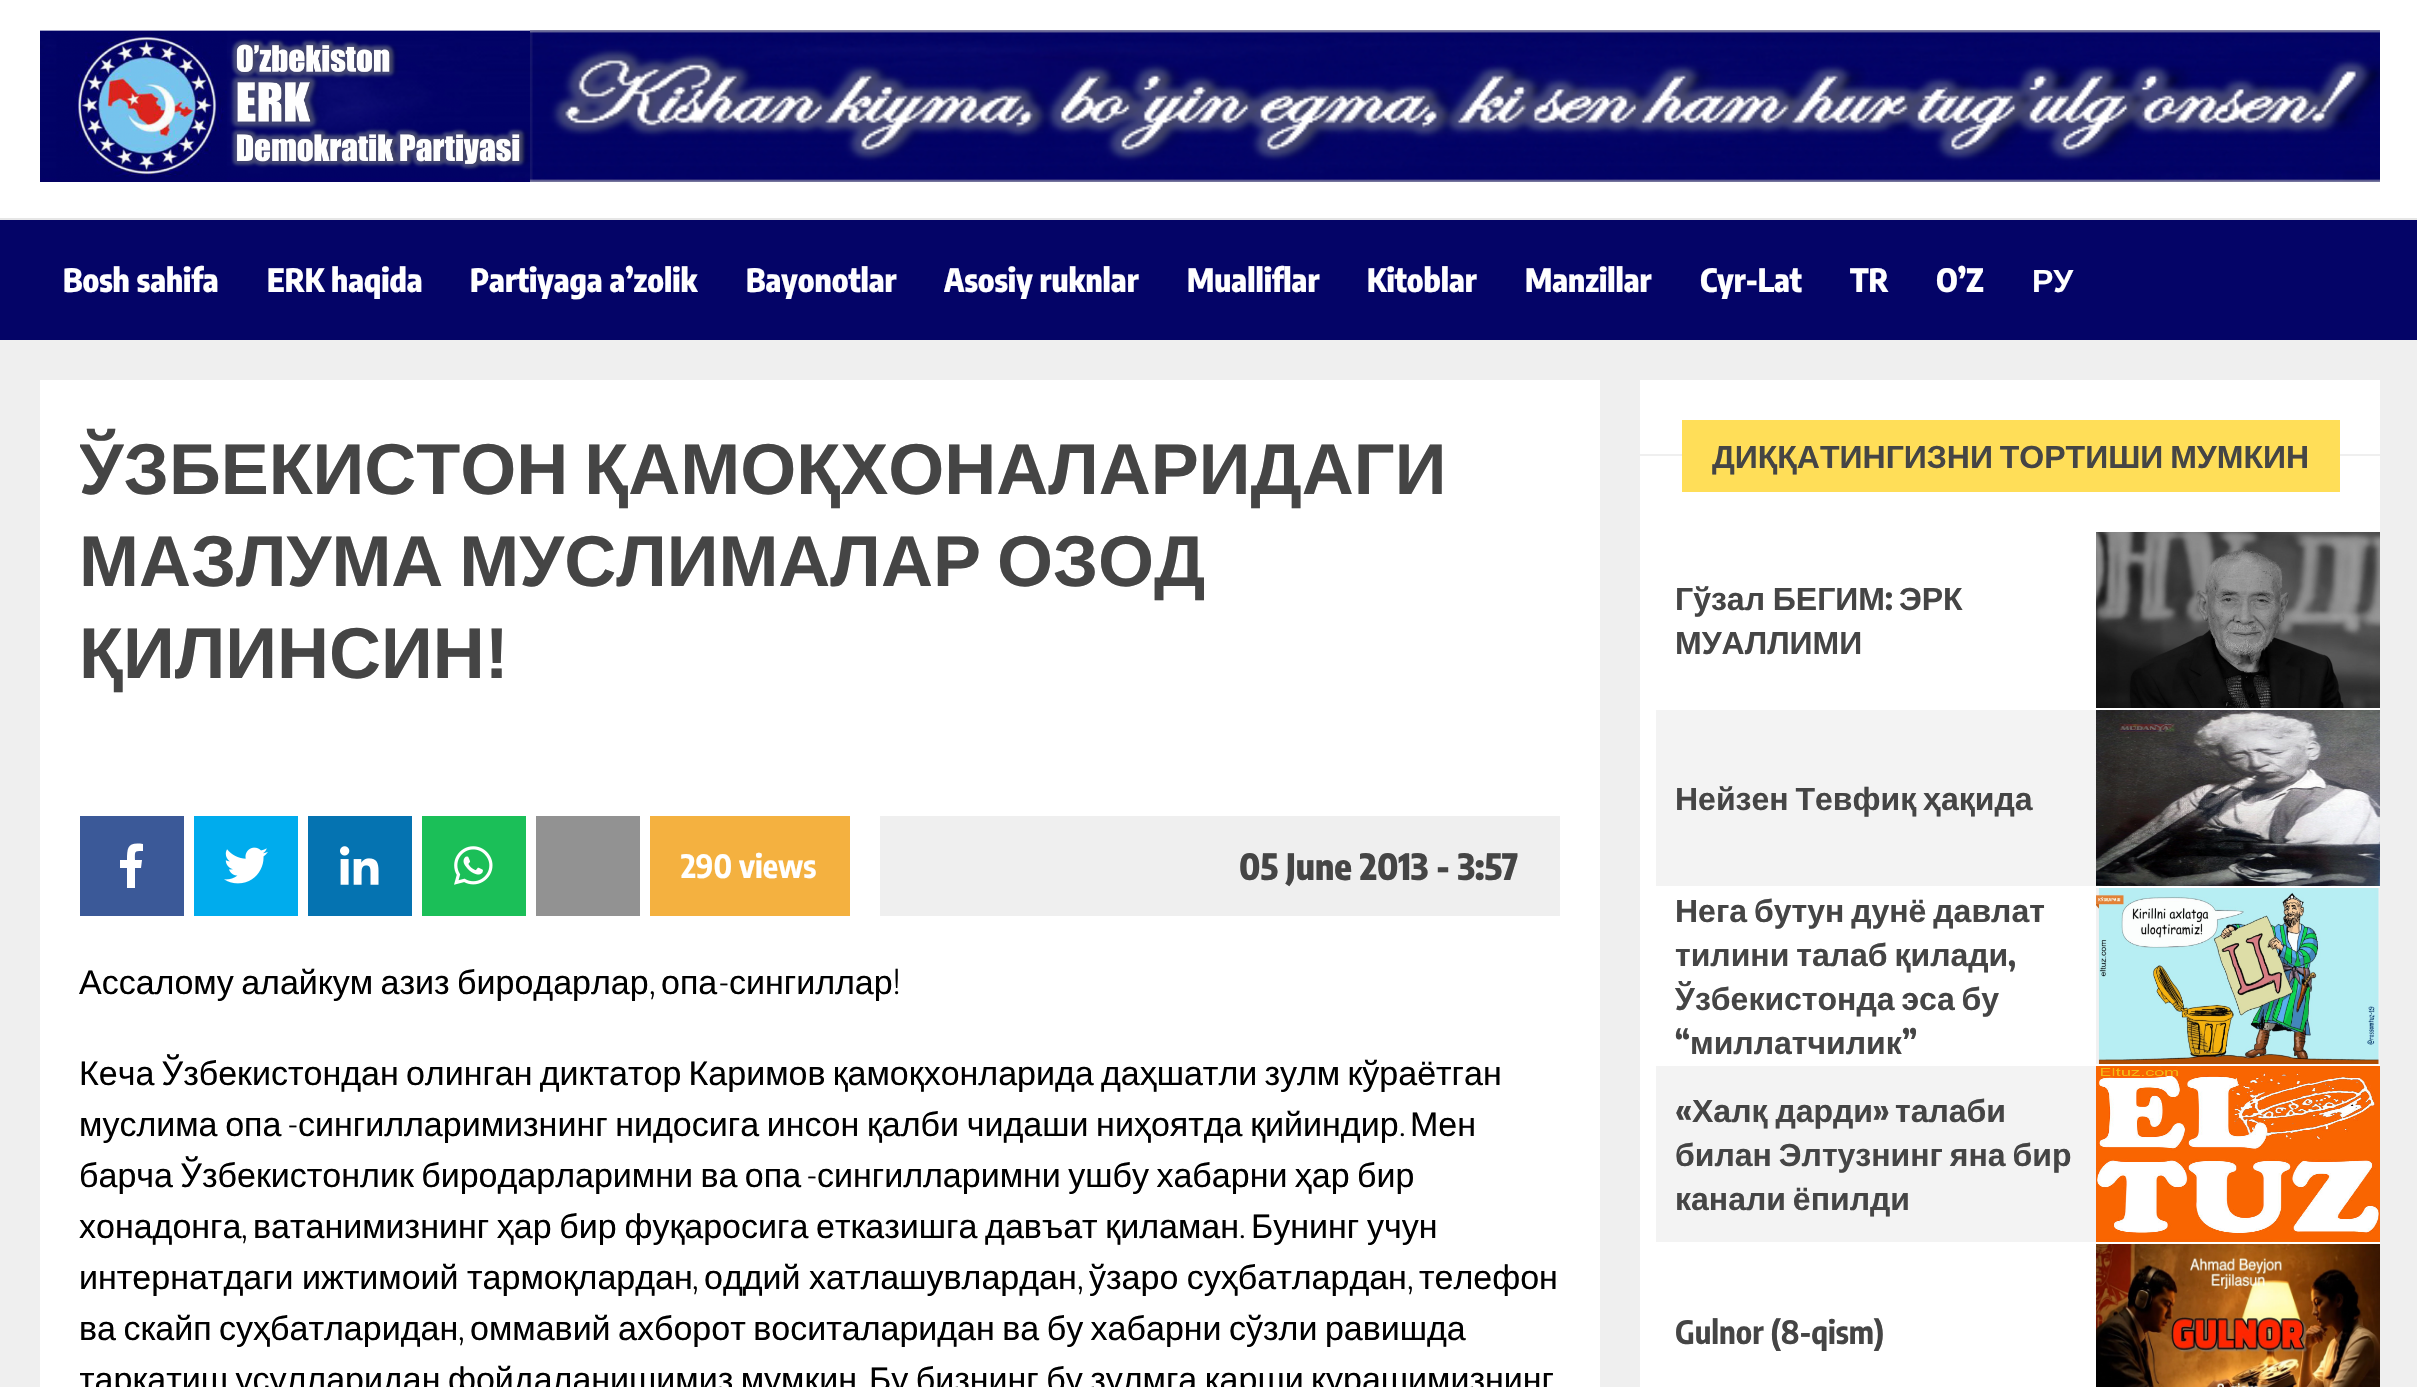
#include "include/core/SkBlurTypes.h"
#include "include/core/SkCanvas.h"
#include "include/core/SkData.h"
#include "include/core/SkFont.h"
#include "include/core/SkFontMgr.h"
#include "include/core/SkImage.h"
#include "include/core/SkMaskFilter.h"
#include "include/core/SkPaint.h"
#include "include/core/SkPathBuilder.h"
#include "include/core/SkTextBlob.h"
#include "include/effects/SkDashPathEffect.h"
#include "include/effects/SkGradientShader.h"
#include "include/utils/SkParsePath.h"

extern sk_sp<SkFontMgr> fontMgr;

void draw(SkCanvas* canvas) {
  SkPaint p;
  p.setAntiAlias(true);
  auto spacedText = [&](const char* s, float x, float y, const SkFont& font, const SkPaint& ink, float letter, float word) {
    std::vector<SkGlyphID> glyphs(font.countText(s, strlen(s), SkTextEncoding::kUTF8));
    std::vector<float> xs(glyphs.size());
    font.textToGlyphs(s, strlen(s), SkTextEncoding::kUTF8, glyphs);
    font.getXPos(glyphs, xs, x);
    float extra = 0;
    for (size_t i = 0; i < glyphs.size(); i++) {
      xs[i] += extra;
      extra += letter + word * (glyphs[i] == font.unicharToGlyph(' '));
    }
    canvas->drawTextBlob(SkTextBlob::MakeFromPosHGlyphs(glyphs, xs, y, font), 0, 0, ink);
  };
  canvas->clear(SkColorSetRGB(239, 239, 239));
  p.setColor(SK_ColorWHITE);
  canvas->drawRect(SkRect::MakeLTRB(0, 0, 2417, 218), p);
  p.setColor(SkColorSetRGB(230, 230, 230));
  canvas->drawRect(SkRect::MakeLTRB(0, 218, 2417, 220), p);
  canvas->drawImageRect(SkImages::DeferredFromEncodedData(SkData::MakeFromFileName("images/1.png")), SkRect::MakeLTRB(40, 30, 530, 182), SkSamplingOptions());
  canvas->drawImageRect(SkImages::DeferredFromEncodedData(SkData::MakeFromFileName("images/2.png")), SkRect::MakeLTRB(530, 30, 2380, 182), SkSamplingOptions());
  p.setColor(SkColorSetRGB(4, 4, 103));
  canvas->drawRect(SkRect::MakeLTRB(0, 220, 2417, 340), p);
  p.setColor(SK_ColorWHITE);
  canvas->drawRect(SkRect::MakeLTRB(40, 380, 1600, 1387), p);
  p.setColor(SkColorSetRGB(59, 89, 152));
  canvas->drawRect(SkRect::MakeLTRB(80, 816, 184, 916), p);
  p.setColor(SK_ColorWHITE);
  canvas->drawPath(SkPathBuilder().moveTo(127, 888).lineTo(127, 868).lineTo(120, 868).lineTo(120, 860).lineTo(127, 860).cubicTo(127, 847, 128, 842, 143, 844).lineTo(143, 851).cubicTo(134, 851, 135, 851, 135, 860).lineTo(142, 860).lineTo(141, 868).lineTo(135, 868).lineTo(135, 888).close().detach(), p);
  p.setColor(SkColorSetRGB(0, 172, 237));
  canvas->drawRect(SkRect::MakeLTRB(194, 816, 298, 916), p);
  canvas->drawImageRect(SkImages::DeferredFromEncodedData(SkData::MakeFromFileName("images/3.png")), SkRect::MakeLTRB(224, 847, 268, 884), SkSamplingOptions());
  p.setColor(SkColorSetRGB(5, 115, 177));
  canvas->drawRect(SkRect::MakeLTRB(308, 816, 412, 916), p);
  canvas->drawImageRect(SkImages::DeferredFromEncodedData(SkData::MakeFromFileName("images/4.png")), SkRect::MakeLTRB(340, 846, 379, 885), SkSamplingOptions());
  p.setColor(SkColorSetRGB(27, 191, 88));
  canvas->drawRect(SkRect::MakeLTRB(422, 816, 526, 916), p);
  canvas->drawImageRect(SkImages::DeferredFromEncodedData(SkData::MakeFromFileName("images/5.png")), SkRect::MakeLTRB(454, 846, 493, 885), SkSamplingOptions());
  p.setColor(SkColorSetRGB(146, 146, 146));
  canvas->drawRect(SkRect::MakeLTRB(536, 816, 640, 916), p);
  p.setColor(SkColorSetRGB(244, 177, 64));
  canvas->drawRect(SkRect::MakeLTRB(650, 816, 850, 916), p);
  p.setColor(SkColorSetRGB(239, 239, 239));
  canvas->drawRect(SkRect::MakeLTRB(880, 816, 1560, 916), p);
  p.setColor(SK_ColorWHITE);
  canvas->drawRect(SkRect::MakeLTRB(1640, 380, 2380, 1387), p);
  p.setColor(SkColorSetRGB(239, 239, 239));
  canvas->drawRect(SkRect::MakeLTRB(1640, 454, 2380, 456), p);
  p.setColor(SkColorSetRGB(255, 222, 88));
  canvas->drawRect(SkRect::MakeLTRB(1682, 420, 2340, 492), p);
  canvas->drawImageRect(SkImages::DeferredFromEncodedData(SkData::MakeFromFileName("images/6.png")), SkRect::MakeLTRB(2096, 532, 2380, 708), SkSamplingOptions());
  p.setColor(SkColorSetRGB(243, 243, 243));
  canvas->drawRect(SkRect::MakeLTRB(1656, 710, 2096, 886), p);
  canvas->drawImageRect(SkImages::DeferredFromEncodedData(SkData::MakeFromFileName("images/7.png")), SkRect::MakeLTRB(2096, 710, 2380, 886), SkSamplingOptions());
  canvas->drawImageRect(SkImages::DeferredFromEncodedData(SkData::MakeFromFileName("images/8.png")), SkRect::MakeLTRB(2096, 888, 2380, 1064), SkSamplingOptions());
  canvas->drawRect(SkRect::MakeLTRB(1656, 1066, 2096, 1242), p);
  canvas->drawImageRect(SkImages::DeferredFromEncodedData(SkData::MakeFromFileName("images/9.png")), SkRect::MakeLTRB(2096, 1066, 2380, 1242), SkSamplingOptions());
  canvas->drawImageRect(SkImages::DeferredFromEncodedData(SkData::MakeFromFileName("images/10.png")), SkRect::MakeLTRB(2096, 1244, 2380, 1387), SkSamplingOptions());
  SkFont font1(fontMgr->matchFamilyStyle("Encode Sans Condensed", SkFontStyle(800, SkFontStyle::kNormal_Width, SkFontStyle::kUpright_Slant)), 32);
  font1.setSubpixel(true);
  p.setColor(SK_ColorWHITE);
  canvas->drawString("Bosh sahifa", 63, 292, font1, p);
  canvas->drawString("ERK haqida", 267, 292, font1, p);
  canvas->drawString("Partiyaga a’zolik", 470, 292, font1, p);
  canvas->drawString("Bayonotlar", 746, 292, font1, p);
  canvas->drawString("Asosiy ruknlar", 944, 292, font1, p);
  canvas->drawString("Mualliflar", 1187, 292, font1, p);
  canvas->drawString("Kitoblar", 1367, 292, font1, p);
  canvas->drawString("Manzillar", 1525, 292, font1, p);
  canvas->drawString("Cyr-Lat", 1700, 292, font1, p);
  canvas->drawString("TR", 1850, 292, font1, p);
  canvas->drawString("O’Z", 1936, 292, font1, p);
  SkFont font2(fontMgr->matchFamilyStyle("Liberation Sans", SkFontStyle::Bold()), 32);
  font2.setSubpixel(true);
  canvas->drawString("РУ", 2032, 292, font2, p);
  canvas->save();
  canvas->clipRect(SkRect::MakeLTRB(80, 420, 1560, 736));
  SkFont font3(fontMgr->matchFamilyStyle("Liberation Sans", SkFontStyle::Bold()), 72);
  font3.setSubpixel(true);
  p.setColor(SkColorSetRGB(69, 69, 69));
  spacedText("ЎЗБЕКИСТОН ҚАМОҚХОНАЛАРИДАГИ", 79, 494, font3, p, 0, -4);
  canvas->restore();
  spacedText("МАЗЛУМА МУСЛИМАЛАР ОЗОД", 79, 586, font3, p, 0, -4);
  canvas->drawString("ҚИЛИНСИН!", 79, 678, font3, p);
  SkFont font4(fontMgr->matchFamilyStyle("Encode Sans Condensed", SkFontStyle::Bold()), 32);
  font4.setSubpixel(true);
  p.setColor(SK_ColorWHITE);
  canvas->drawString("290 views", 681, 878, font4, p);
  SkFont font5(fontMgr->matchFamilyStyle("Encode Sans Condensed", SkFontStyle(800, SkFontStyle::kNormal_Width, SkFontStyle::kUpright_Slant)), 36);
  font5.setSubpixel(true);
  p.setColor(SkColorSetRGB(69, 69, 69));
  canvas->drawString("05 June 2013 - 3:57", 1239, 880, font5, p);
  SkFont font6(fontMgr->matchFamilyStyle("Liberation Sans", SkFontStyle::Normal()), 34);
  font6.setSubpixel(true);
  p.setColor(SK_ColorBLACK);
  spacedText("Ассалому алайкум азиз биродарлар", 79, 994, font6, p, 0, -2);
  canvas->drawString("опа", 661, 994, font6, p);
  SkFont font7(fontMgr->matchFamilyStyle("Encode Sans Condensed", SkFontStyle(300, SkFontStyle::kNormal_Width, SkFontStyle::kUpright_Slant)), 34);
  font7.setSubpixel(true);
  canvas->drawString("-", 718, 994, font7, p);
  canvas->drawString("сингиллар", 729, 994, font6, p);
  canvas->drawString("!", 893, 994, font7, p);
  canvas->drawString(",", 649, 994, font7, p);
  spacedText("Кеча Ўзбекистондан олинган диктатор Каримов қамоқхонларида даҳшатли зулм кўраётган", 79, 1085, font6, p, 0, -2.25f);
  spacedText("муслима опа", 79, 1136, font6, p, 0, -1.75f);
  canvas->drawString("-", 287, 1136, font7, p);
  spacedText("сингилларимизнинг нидосига инсон қалби чидаши ниҳоятда қийиндир", 298, 1136, font6, p, 0, -1.75f);
  canvas->drawString("Мен", 1410, 1136, font6, p);
  canvas->drawString(".", 1399, 1136, font7, p);
  spacedText("барча Ўзбекистонлик биродарларимни ва опа", 79, 1187, font6, p, 0, -2);
  canvas->drawString("-", 806, 1187, font7, p);
  spacedText("сингилларимни ушбу хабарни ҳар бир", 817, 1187, font6, p, 0, -2);
  canvas->drawString("хонадонга", 79, 1238, font6, p);
  canvas->drawString(",", 241, 1238, font7, p);
  spacedText("ватанимизнинг ҳар бир фуқаросига етказишга давъат қиламан", 253, 1238, font6, p, 0, -1.75f);
  canvas->drawString(".", 1239, 1238, font7, p);
  spacedText("Бунинг учун", 1251, 1238, font6, p, 0, -1.75f);
  spacedText("интернатдаги ижтимоий тармоқлардан", 79, 1289, font6, p, 0, -1);
  canvas->drawString(",", 692, 1289, font7, p);
  spacedText("оддий хатлашувлардан", 704, 1289, font6, p, 0, -1);
  canvas->drawString(",", 1077, 1289, font7, p);
  spacedText("ўзаро суҳбатлардан", 1089, 1289, font6, p, 0, -1);
  canvas->drawString(",", 1407, 1289, font7, p);
  canvas->drawString("телефон", 1419, 1289, font6, p);
  spacedText("ва скайп суҳбатларидан", 79, 1340, font6, p, 0, -2);
  canvas->drawString(",", 458, 1340, font7, p);
  spacedText("оммавий ахборот воситаларидан ва бу хабарни сўзли равишда", 470, 1340, font6, p, 0, -2);
  canvas->save();
  canvas->clipRect(SkRect::MakeLTRB(80, 956, 1560, 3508));
  spacedText("тарқатиш усулларидан фойдаланишимиз мумкин", 79, 1391, font6, p, 0, -2);
  canvas->restore();
  spacedText("Бу бизнинг бу зулмга қарши курашимизнинг", 869, 1391, font6, p, 0, -2);
  p.setColor(SkColorSetRGB(69, 69, 69));
  spacedText("ДИҚҚАТИНГИЗНИ ТОРТИШИ МУМКИН", 1712, 468, font2, p, 0, -2);
  spacedText("Гўзал БЕГИМ", 1675, 610, font2, p, 0, -1);
  canvas->drawString(":", 1885, 610, font4, p);
  canvas->drawString("ЭРК", 1899, 610, font2, p);
  canvas->drawString("МУАЛЛИМИ", 1675, 654, font2, p);
  spacedText("Нейзен Тевфиқ ҳақида", 1675, 810, font2, p, 0, -2);
  spacedText("Нега бутун дунё давлат", 1675, 922, font2, p, 0, -2);
  spacedText("тилини талаб қилади", 1675, 966, font2, p, 0, -2);
  canvas->drawString(",", 2008, 966, font4, p);
  spacedText("Ўзбекистонда эса бу", 1675, 1010, font2, p, 0, -2);
  canvas->drawString("“", 1675, 1054, font4, p);
  canvas->drawString("”", 1902, 1054, font4, p);
  canvas->drawString("миллатчилик", 1690, 1054, font2, p);
  canvas->drawString("«", 1675, 1122, font4, p);
  spacedText("Халқ дарди", 1692, 1122, font2, p, 0, -1);
  canvas->drawString("»", 1873, 1122, font4, p);
  canvas->drawString("талаби", 1895, 1122, font2, p);
  spacedText("билан Элтузнинг яна бир", 1675, 1166, font2, p, 0, -2);
  spacedText("канали ёпилди", 1675, 1210, font2, p, 0, -2);
  canvas->drawString("Gulnor (8-qism)", 1675, 1344, font4, p);
}
